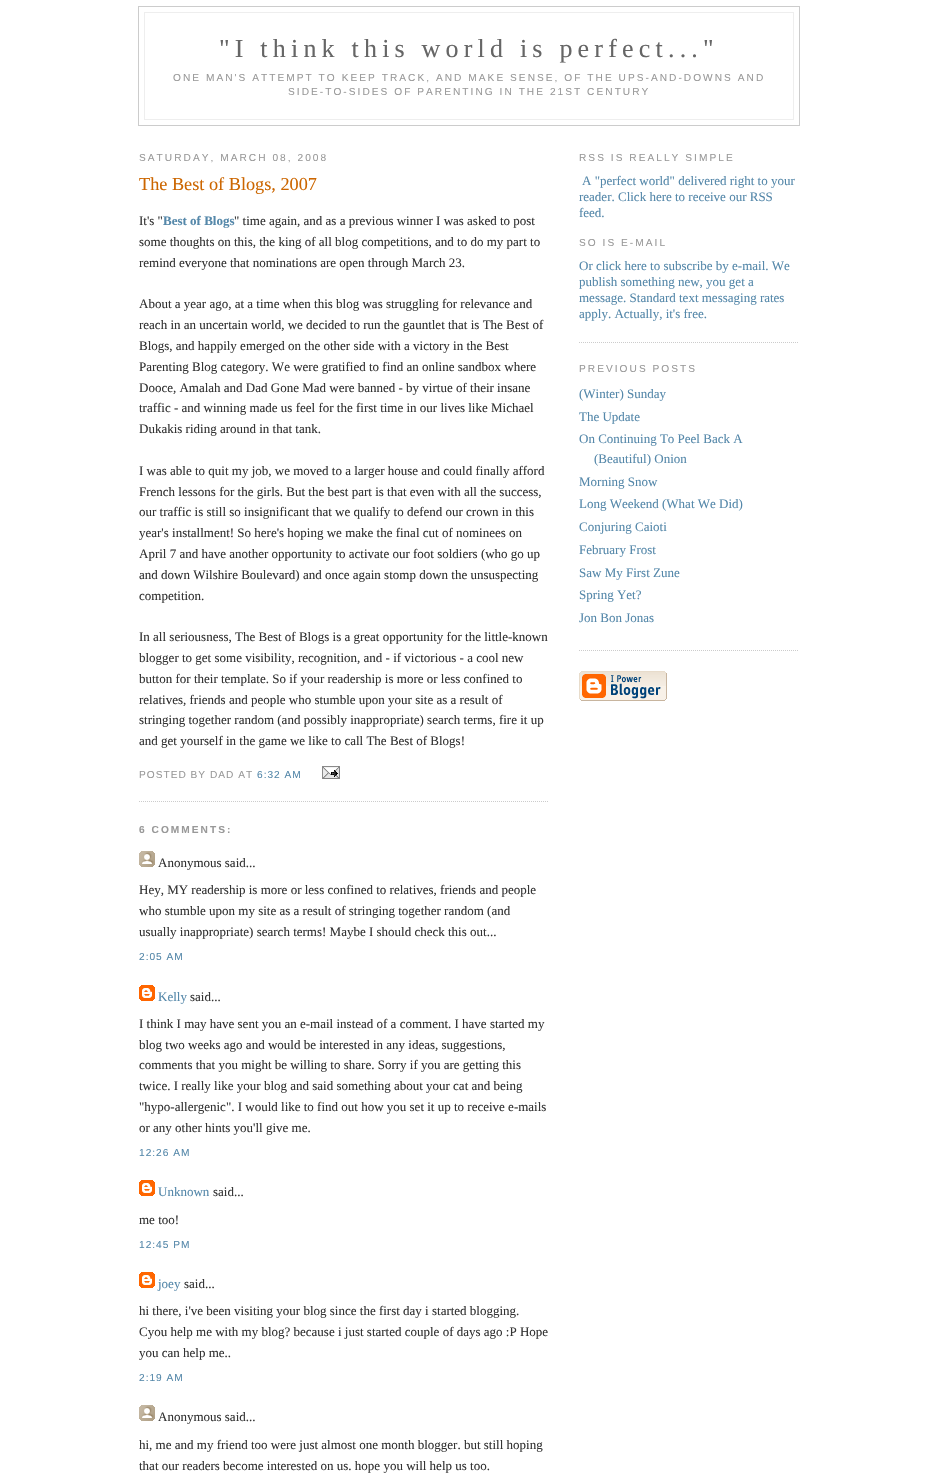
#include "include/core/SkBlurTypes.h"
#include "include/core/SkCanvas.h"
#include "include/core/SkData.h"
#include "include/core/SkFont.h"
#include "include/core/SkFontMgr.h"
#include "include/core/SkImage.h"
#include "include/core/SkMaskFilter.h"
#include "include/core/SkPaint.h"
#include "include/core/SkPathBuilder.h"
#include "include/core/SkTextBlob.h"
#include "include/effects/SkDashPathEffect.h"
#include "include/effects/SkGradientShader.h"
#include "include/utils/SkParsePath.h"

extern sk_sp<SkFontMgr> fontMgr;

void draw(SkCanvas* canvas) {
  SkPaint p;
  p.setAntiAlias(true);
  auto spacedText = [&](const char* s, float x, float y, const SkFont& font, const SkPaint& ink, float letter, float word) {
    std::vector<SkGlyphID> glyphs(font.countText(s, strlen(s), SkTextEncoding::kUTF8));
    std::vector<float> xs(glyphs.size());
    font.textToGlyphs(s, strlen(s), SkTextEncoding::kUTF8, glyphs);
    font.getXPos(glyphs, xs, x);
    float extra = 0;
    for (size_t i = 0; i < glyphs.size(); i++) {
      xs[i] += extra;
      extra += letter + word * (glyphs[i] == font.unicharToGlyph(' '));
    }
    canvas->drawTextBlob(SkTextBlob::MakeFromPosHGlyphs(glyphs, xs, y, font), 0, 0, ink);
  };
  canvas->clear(SK_ColorWHITE);
  p.setStyle(SkPaint::kStroke_Style);
  p.setStrokeWidth(1);
  p.setColor(SkColorSetRGB(204, 204, 204));
  canvas->drawRect(SkRect::MakeLTRB(138.5f, 6.5f, 799.5f, 125.5f), p);
  p.setStyle(SkPaint::kFill_Style);
  p.setColor(SkColorSetRGB(238, 238, 238));
  canvas->drawRect(SkRect::MakeLTRB(144, 12, 794, 13), p);
  canvas->drawRect(SkRect::MakeLTRB(793, 12, 794, 120), p);
  canvas->drawRect(SkRect::MakeLTRB(144, 12, 145, 71), p);
  canvas->drawRect(SkRect::MakeLTRB(144, 119, 794, 120), p);
  canvas->drawRect(SkRect::MakeLTRB(144, 71, 145, 120), p);
  p.setStyle(SkPaint::kStroke_Style);
  p.setColor(SkColorSetRGB(204, 204, 204));
  p.setPathEffect(SkDashPathEffect::Make({{1, 1}}, 0));
  canvas->drawPath(SkPathBuilder().moveTo(139, 801.5f).lineTo(549, 801.5f).detach(), p);
  p.setPathEffect(nullptr);
  canvas->drawImageRect(SkImages::DeferredFromEncodedData(SkData::MakeFromFileName("images/1.png")), SkRect::MakeLTRB(322, 766, 340, 779), SkSamplingOptions());
  canvas->drawImageRect(SkImages::DeferredFromEncodedData(SkData::MakeFromFileName("images/2.png")), SkRect::MakeLTRB(139, 851, 155, 867), SkSamplingOptions());
  canvas->drawImageRect(SkImages::DeferredFromEncodedData(SkData::MakeFromFileName("images/3.png")), SkRect::MakeLTRB(139, 985, 155, 1001), SkSamplingOptions());
  canvas->drawImageRect(SkImages::DeferredFromEncodedData(SkData::MakeFromFileName("images/3.png")), SkRect::MakeLTRB(139, 1180, 155, 1196), SkSamplingOptions());
  canvas->drawImageRect(SkImages::DeferredFromEncodedData(SkData::MakeFromFileName("images/3.png")), SkRect::MakeLTRB(139, 1272, 155, 1288), SkSamplingOptions());
  canvas->drawImageRect(SkImages::DeferredFromEncodedData(SkData::MakeFromFileName("images/2.png")), SkRect::MakeLTRB(139, 1405, 155, 1421), SkSamplingOptions());
  p.setPathEffect(SkDashPathEffect::Make({{1, 1}}, 0));
  canvas->drawPath(SkPathBuilder().moveTo(579, 342.5f).lineTo(799, 342.5f).detach(), p);
  p.setPathEffect(nullptr);
  p.setPathEffect(SkDashPathEffect::Make({{1, 1}}, 0));
  canvas->drawPath(SkPathBuilder().moveTo(579, 650.5f).lineTo(799, 650.5f).detach(), p);
  p.setPathEffect(nullptr);
  canvas->drawImageRect(SkImages::DeferredFromEncodedData(SkData::MakeFromFileName("images/4.png")), SkRect::MakeLTRB(579, 671, 667, 701), SkSamplingOptions());
  SkFont font1(fontMgr->matchFamilyStyle("Liberation Serif", SkFontStyle::Normal()), 26);
  font1.setSubpixel(true);
  p.setStyle(SkPaint::kFill_Style);
  p.setColor(SkColorSetRGB(102, 102, 102));
  spacedText("\"I think this world is perfect...\"", 219, 57, font1, p, 5.2f, 0);
  SkFont font2(fontMgr->matchFamilyStyle("Liberation Sans", SkFontStyle::Normal()), 10.15f);
  font2.setSubpixel(true);
  p.setColor(SkColorSetRGB(153, 153, 153));
  spacedText("ONE MAN'S ATTEMPT TO KEEP TRACK, AND MAKE SENSE, OF THE UPS-AND-DOWNS AND", 173, 81, font2, p, 2.03f, 0);
  spacedText("SIDE-TO-SIDES OF PARENTING IN THE 21ST CENTURY", 288, 95, font2, p, 2.03f, 0);
  spacedText("SATURDAY, MARCH 08, 2008", 139, 161, font2, p, 2.03f, 0);
  SkFont font3(fontMgr->matchFamilyStyle("Liberation Serif", SkFontStyle::Normal()), 18.25f);
  font3.setSubpixel(true);
  p.setColor(SkColorSetRGB(204, 102, 0));
  canvas->drawString("The Best of Blogs, 2007", 139, 190, font3, p);
  SkFont font4(fontMgr->matchFamilyStyle("Liberation Serif", SkFontStyle::Normal()), 13);
  font4.setSubpixel(true);
  p.setColor(SkColorSetRGB(51, 51, 51));
  canvas->drawString("It's \"", 139, 225, font4, p);
  SkFont font5(fontMgr->matchFamilyStyle("Liberation Serif", SkFontStyle::Bold()), 13);
  font5.setSubpixel(true);
  p.setColor(SkColorSetRGB(85, 136, 170));
  canvas->drawString("Best of Blogs", 163, 225, font5, p);
  p.setColor(SkColorSetRGB(51, 51, 51));
  canvas->drawString("\" time again, and as a previous winner I was asked to post", 234, 225, font4, p);
  canvas->drawString("some thoughts on this, the king of all blog competitions, and to do my part to", 139, 246, font4, p);
  canvas->drawString("remind everyone that nominations are open through March 23.", 139, 267, font4, p);
  canvas->drawString("About a year ago, at a time when this blog was struggling for relevance and", 139, 308, font4, p);
  canvas->drawString("reach in an uncertain world, we decided to run the gauntlet that is The Best of", 139, 329, font4, p);
  canvas->drawString("Blogs, and happily emerged on the other side with a victory in the Best", 139, 350, font4, p);
  canvas->drawString("Parenting Blog category. We were gratified to find an online sandbox where", 139, 371, font4, p);
  canvas->drawString("Dooce, Amalah and Dad Gone Mad were banned - by virtue of their insane", 139, 392, font4, p);
  canvas->drawString("traffic - and winning made us feel for the first time in our lives like Michael", 139, 412, font4, p);
  canvas->drawString("Dukakis riding around in that tank.", 139, 433, font4, p);
  canvas->drawString("I was able to quit my job, we moved to a larger house and could finally afford", 139, 475, font4, p);
  canvas->drawString("French lessons for the girls. But the best part is that even with all the success,", 139, 496, font4, p);
  canvas->drawString("our traffic is still so insignificant that we qualify to defend our crown in this", 139, 516, font4, p);
  canvas->drawString("year's installment! So here's hoping we make the final cut of nominees on", 139, 537, font4, p);
  canvas->drawString("April 7 and have another opportunity to activate our foot soldiers (who go up", 139, 558, font4, p);
  canvas->drawString("and down Wilshire Boulevard) and once again stomp down the unsuspecting", 139, 579, font4, p);
  canvas->drawString("competition.", 139, 600, font4, p);
  canvas->drawString("In all seriousness, The Best of Blogs is a great opportunity for the little-known", 139, 641, font4, p);
  canvas->drawString("blogger to get some visibility, recognition, and - if victorious - a cool new", 139, 662, font4, p);
  canvas->drawString("button for their template. So if your readership is more or less confined to", 139, 683, font4, p);
  canvas->drawString("relatives, friends and people who stumble upon your site as a result of", 139, 704, font4, p);
  canvas->drawString("stringing together random (and possibly inappropriate) search terms, fire it up", 139, 724, font4, p);
  canvas->drawString("and get yourself in the game we like to call The Best of Blogs!", 139, 745, font4, p);
  p.setColor(SkColorSetRGB(153, 153, 153));
  spacedText("POSTED BY DAD AT", 139, 778, font2, p, 1, 0);
  p.setColor(SkColorSetRGB(85, 136, 170));
  spacedText("6:32 AM", 257, 778, font2, p, 1, 0);
  SkFont font6(fontMgr->matchFamilyStyle("Liberation Sans", SkFontStyle::Bold()), 10.15f);
  font6.setSubpixel(true);
  p.setColor(SkColorSetRGB(153, 153, 153));
  spacedText("6 COMMENTS:", 139, 833, font6, p, 2.03f, 0);
  p.setColor(SkColorSetRGB(51, 51, 51));
  canvas->drawString("Anonymous said...", 158, 867, font4, p);
  canvas->drawString("Hey, MY readership is more or less confined to relatives, friends and people", 139, 894, font4, p);
  canvas->drawString("who stumble upon my site as a result of stringing together random (and", 139, 915, font4, p);
  canvas->drawString("usually inappropriate) search terms! Maybe I should check this out...", 139, 936, font4, p);
  p.setColor(SkColorSetRGB(85, 136, 170));
  spacedText("2:05 AM", 139, 960, font2, p, 1, 0);
  canvas->drawString("Kelly", 158, 1001, font4, p);
  p.setColor(SkColorSetRGB(51, 51, 51));
  canvas->drawString("said...", 190, 1001, font4, p);
  canvas->drawString("I think I may have sent you an e-mail instead of a comment. I have started my", 139, 1028, font4, p);
  canvas->drawString("blog two weeks ago and would be interested in any ideas, suggestions,", 139, 1049, font4, p);
  canvas->drawString("comments that you might be willing to share. Sorry if you are getting this", 139, 1069, font4, p);
  canvas->drawString("twice. I really like your blog and said something about your cat and being", 139, 1090, font4, p);
  canvas->drawString("\"hypo-allergenic\". I would like to find out how you set it up to receive e-mails", 139, 1111, font4, p);
  canvas->drawString("or any other hints you'll give me.", 139, 1132, font4, p);
  p.setColor(SkColorSetRGB(85, 136, 170));
  spacedText("12:26 AM", 139, 1156, font2, p, 1, 0);
  canvas->drawString("Unknown", 158, 1196, font4, p);
  p.setColor(SkColorSetRGB(51, 51, 51));
  canvas->drawString("said...", 213, 1196, font4, p);
  canvas->drawString("me too!", 139, 1224, font4, p);
  p.setColor(SkColorSetRGB(85, 136, 170));
  spacedText("12:45 PM", 139, 1248, font2, p, 1, 0);
  canvas->drawString("joey", 158, 1288, font4, p);
  p.setColor(SkColorSetRGB(51, 51, 51));
  canvas->drawString("said...", 184, 1288, font4, p);
  canvas->drawString("hi there, i've been visiting your blog since the first day i started blogging.", 139, 1315, font4, p);
  canvas->drawString("Cyou help me with my blog? because i just started couple of days ago :P Hope", 139, 1336, font4, p);
  canvas->drawString("you can help me..", 139, 1357, font4, p);
  p.setColor(SkColorSetRGB(85, 136, 170));
  spacedText("2:19 AM", 139, 1381, font2, p, 1, 0);
  p.setColor(SkColorSetRGB(51, 51, 51));
  canvas->drawString("Anonymous said...", 158, 1421, font4, p);
  canvas->drawString("hi, me and my friend too were just almost one month blogger. but still hoping", 139, 1449, font4, p);
  canvas->drawString("that our readers become interested on us. hope you will help us too.", 139, 1470, font4, p);
  p.setColor(SkColorSetRGB(153, 153, 153));
  spacedText("RSS IS REALLY SIMPLE", 579, 161, font2, p, 2.03f, 0);
  p.setColor(SkColorSetRGB(85, 136, 170));
  canvas->drawString("A \"perfect world\" delivered right to your", 582, 185, font4, p);
  canvas->drawString("reader. Click here to receive our RSS", 579, 201, font4, p);
  canvas->drawString("feed.", 579, 217, font4, p);
  p.setColor(SkColorSetRGB(153, 153, 153));
  spacedText("SO IS E-MAIL", 579, 246, font2, p, 2.03f, 0);
  p.setColor(SkColorSetRGB(85, 136, 170));
  canvas->drawString("Or click here to subscribe by e-mail. We", 579, 270, font4, p);
  canvas->drawString("publish something new, you get a", 579, 286, font4, p);
  canvas->drawString("message. Standard text messaging rates", 579, 302, font4, p);
  canvas->drawString("apply. Actually, it's free.", 579, 318, font4, p);
  p.setColor(SkColorSetRGB(153, 153, 153));
  spacedText("PREVIOUS POSTS", 579, 372, font2, p, 2.03f, 0);
  p.setColor(SkColorSetRGB(85, 136, 170));
  canvas->drawString("(Winter) Sunday", 579, 398, font4, p);
  canvas->drawString("The Update", 579, 421, font4, p);
  canvas->drawString("On Continuing To Peel Back A", 579, 443, font4, p);
  canvas->drawString("(Beautiful) Onion", 594, 463, font4, p);
  canvas->drawString("Morning Snow", 579, 486, font4, p);
  canvas->drawString("Long Weekend (What We Did)", 579, 508, font4, p);
  canvas->drawString("Conjuring Caioti", 579, 531, font4, p);
  canvas->drawString("February Frost", 579, 554, font4, p);
  canvas->drawString("Saw My First Zune", 579, 577, font4, p);
  canvas->drawString("Spring Yet?", 579, 599, font4, p);
  canvas->drawString("Jon Bon Jonas", 579, 622, font4, p);
}
